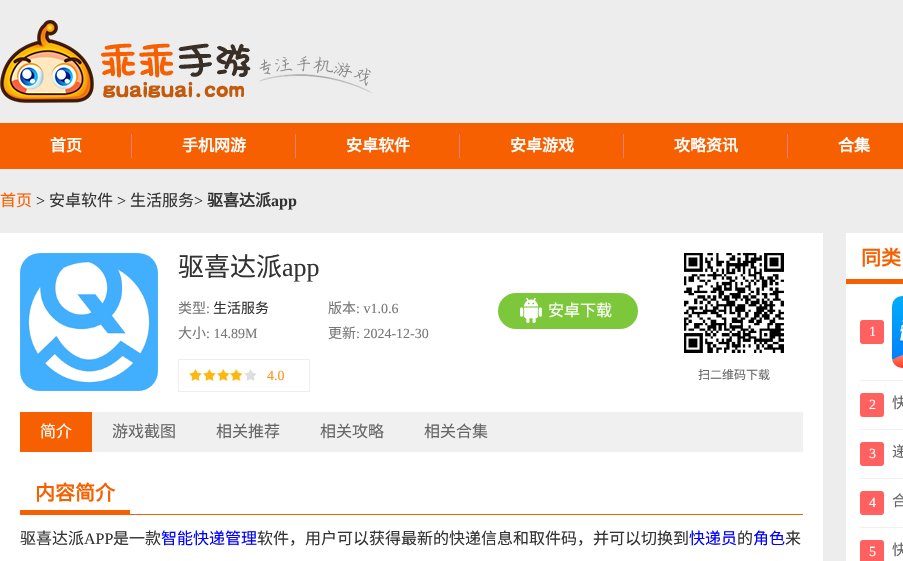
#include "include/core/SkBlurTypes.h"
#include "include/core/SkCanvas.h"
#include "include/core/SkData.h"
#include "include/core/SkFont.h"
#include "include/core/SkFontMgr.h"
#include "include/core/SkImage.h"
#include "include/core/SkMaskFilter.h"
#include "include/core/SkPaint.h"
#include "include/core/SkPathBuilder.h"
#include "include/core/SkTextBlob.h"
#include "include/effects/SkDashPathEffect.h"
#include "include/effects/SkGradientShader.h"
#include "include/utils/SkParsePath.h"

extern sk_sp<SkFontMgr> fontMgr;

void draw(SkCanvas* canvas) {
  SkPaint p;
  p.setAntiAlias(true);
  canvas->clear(SkColorSetRGB(237, 237, 237));
  canvas->drawImageRect(SkImages::DeferredFromEncodedData(SkData::MakeFromFileName("images/1.png")), SkRect::MakeLTRB(0, 20, 373, 103), SkSamplingOptions());
  p.setColor(SkColorSetRGB(246, 96, 0));
  canvas->drawRect(SkRect::MakeLTRB(0, 123, 903, 169), p);
  p.setColor(SkColorSetRGB(239, 126, 126));
  canvas->drawRect(SkRect::MakeLTRB(131, 134, 132, 158), p);
  canvas->drawRect(SkRect::MakeLTRB(295, 134, 296, 158), p);
  canvas->drawRect(SkRect::MakeLTRB(459, 134, 460, 158), p);
  canvas->drawRect(SkRect::MakeLTRB(623, 134, 624, 158), p);
  canvas->drawRect(SkRect::MakeLTRB(787, 134, 788, 158), p);
  p.setColor(SK_ColorWHITE);
  canvas->drawRect(SkRect::MakeLTRB(0, 233, 823, 561), p);
  canvas->drawImageRect(SkImages::DeferredFromEncodedData(SkData::MakeFromFileName("images/2.png")), SkRect::MakeLTRB(20, 253, 158, 391), SkSamplingOptions());
  p.setColor(SkColorSetRGB(125, 200, 58));
  canvas->drawRoundRect(SkRect::MakeLTRB(498, 293, 638, 329), 18, 18, p);
  canvas->drawImageRect(SkImages::DeferredFromEncodedData(SkData::MakeFromFileName("images/3.png")), SkRect::MakeLTRB(520, 298, 542, 323), SkSamplingOptions());
  p.setStyle(SkPaint::kStroke_Style);
  p.setStrokeWidth(1);
  p.setColor(SkColorSetRGB(238, 238, 238));
  canvas->drawRect(SkRect::MakeLTRB(178.5f, 359.5f, 309.5f, 391.5f), p);
  canvas->drawImageRect(SkImages::DeferredFromEncodedData(SkData::MakeFromFileName("images/4.png")), SkRect::MakeLTRB(243, 369, 257, 381), SkSamplingOptions());
  canvas->drawImageRect(SkImages::DeferredFromEncodedData(SkData::MakeFromFileName("images/5.png")), SkRect::MakeLTRB(189, 369, 243, 381), SkSamplingOptions());
  canvas->drawImageRect(SkImages::DeferredFromEncodedData(SkData::MakeFromFileName("images/6.png")), SkRect::MakeLTRB(684, 253, 784, 353), SkSamplingOptions());
  p.setStyle(SkPaint::kFill_Style);
  p.setColor(SkColorSetRGB(240, 240, 240));
  canvas->drawRect(SkRect::MakeLTRB(92, 412, 803, 452), p);
  p.setColor(SkColorSetRGB(246, 96, 0));
  canvas->drawRect(SkRect::MakeLTRB(20, 412, 92, 452), p);
  canvas->drawRect(SkRect::MakeLTRB(20, 514, 803, 515), p);
  canvas->drawRect(SkRect::MakeLTRB(20, 510, 130, 514), p);
  p.setColor(SK_ColorWHITE);
  canvas->drawRect(SkRect::MakeLTRB(846, 233, 903, 561), p);
  p.setColor(SkColorSetRGB(246, 96, 0));
  canvas->drawRect(SkRect::MakeLTRB(846, 279, 903, 284), p);
  p.setColor(SkColorSetRGB(240, 240, 240));
  canvas->drawRect(SkRect::MakeLTRB(860, 380, 903, 381), p);
  p.setColor(SkColorSetRGB(255, 96, 96));
  canvas->drawRoundRect(SkRect::MakeLTRB(860, 320, 884, 344), 3, 3, p);
  canvas->drawImageRect(SkImages::DeferredFromEncodedData(SkData::MakeFromFileName("images/7.png")), SkRect::MakeLTRB(892, 296, 903, 368), SkSamplingOptions());
  p.setColor(SkColorSetRGB(240, 240, 240));
  canvas->drawRect(SkRect::MakeLTRB(860, 429, 903, 430), p);
  p.setColor(SkColorSetRGB(255, 96, 96));
  canvas->drawRoundRect(SkRect::MakeLTRB(860, 393, 884, 417), 3, 3, p);
  p.setColor(SkColorSetRGB(240, 240, 240));
  canvas->drawRect(SkRect::MakeLTRB(860, 478, 903, 479), p);
  p.setColor(SkColorSetRGB(255, 96, 96));
  canvas->drawRoundRect(SkRect::MakeLTRB(860, 442, 884, 466), 3, 3, p);
  p.setColor(SkColorSetRGB(240, 240, 240));
  canvas->drawRect(SkRect::MakeLTRB(860, 527, 903, 528), p);
  p.setColor(SkColorSetRGB(255, 96, 96));
  canvas->drawRoundRect(SkRect::MakeLTRB(860, 491, 884, 515), 3, 3, p);
  canvas->drawRoundRect(SkRect::MakeLTRB(860, 540, 884, 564), 3, 3, p);
  SkFont font1(fontMgr->matchFamilyStyle("Noto Sans CJK SC", SkFontStyle::Bold()), 16);
  font1.setSubpixel(true);
  p.setColor(SK_ColorWHITE);
  canvas->drawString("首页", 50, 151, font1, p);
  canvas->drawString("手机网游", 182, 151, font1, p);
  canvas->drawString("安卓软件", 346, 151, font1, p);
  canvas->drawString("安卓游戏", 510, 151, font1, p);
  canvas->drawString("攻略资讯", 674, 151, font1, p);
  canvas->drawString("合集", 838, 151, font1, p);
  SkFont font2(fontMgr->matchFamilyStyle("Noto Sans CJK SC", SkFontStyle::Normal()), 16);
  font2.setSubpixel(true);
  p.setColor(SkColorSetRGB(246, 96, 0));
  canvas->drawString("首页", 0, 206, font2, p);
  SkFont font3(fontMgr->matchFamilyStyle("Liberation Serif", SkFontStyle::Normal()), 16);
  font3.setSubpixel(true);
  p.setColor(SkColorSetRGB(51, 51, 51));
  canvas->drawString(">", 36, 206, font3, p);
  canvas->drawString("安卓软件", 49, 206, font2, p);
  canvas->drawString(">", 117, 206, font3, p);
  canvas->drawString("生活服务", 130, 206, font2, p);
  canvas->drawString(">", 194, 206, font3, p);
  canvas->drawString("驱喜达派", 207, 206, font1, p);
  SkFont font4(fontMgr->matchFamilyStyle("Liberation Serif", SkFontStyle::Bold()), 16);
  font4.setSubpixel(true);
  canvas->drawString("app", 271, 206, font4, p);
  SkFont font5(fontMgr->matchFamilyStyle("Noto Sans CJK SC", SkFontStyle::Normal()), 26);
  font5.setSubpixel(true);
  canvas->drawString("驱喜达派", 178, 276, font5, p);
  SkFont font6(fontMgr->matchFamilyStyle("Liberation Serif", SkFontStyle::Normal()), 26);
  font6.setSubpixel(true);
  canvas->drawString("app", 282, 276, font6, p);
  SkFont font7(fontMgr->matchFamilyStyle("Noto Sans CJK SC", SkFontStyle::Normal()), 14);
  font7.setSubpixel(true);
  p.setColor(SkColorSetRGB(119, 119, 119));
  canvas->drawString("类型", 178, 313, font7, p);
  SkFont font8(fontMgr->matchFamilyStyle("Liberation Serif", SkFontStyle::Normal()), 14);
  font8.setSubpixel(true);
  canvas->drawString(":", 206, 313, font8, p);
  p.setColor(SkColorSetRGB(51, 51, 51));
  canvas->drawString("生活服务", 213, 313, font7, p);
  p.setColor(SkColorSetRGB(119, 119, 119));
  canvas->drawString("版本", 328, 313, font7, p);
  canvas->drawString(": v1.0.6", 356, 313, font8, p);
  canvas->drawString("大小", 178, 338, font7, p);
  canvas->drawString(": 14.89M", 206, 338, font8, p);
  canvas->drawString("更新", 328, 338, font7, p);
  canvas->drawString(": 2024-12-30", 356, 338, font8, p);
  p.setColor(SK_ColorWHITE);
  canvas->drawString("安卓下载", 548, 316, font2, p);
  p.setColor(SkColorSetRGB(255, 148, 26));
  canvas->drawString("4.0", 267, 380, font8, p);
  SkFont font9(fontMgr->matchFamilyStyle("Noto Sans CJK SC", SkFontStyle::Normal()), 12);
  font9.setSubpixel(true);
  p.setColor(SkColorSetRGB(102, 102, 102));
  canvas->drawString("扫二维码下载", 698, 379, font9, p);
  p.setColor(SK_ColorWHITE);
  canvas->drawString("简介", 40, 437, font2, p);
  p.setColor(SkColorSetRGB(102, 102, 102));
  canvas->drawString("游戏截图", 112, 437, font2, p);
  canvas->drawString("相关推荐", 216, 437, font2, p);
  canvas->drawString("相关攻略", 320, 437, font2, p);
  canvas->drawString("相关合集", 424, 437, font2, p);
  SkFont font10(fontMgr->matchFamilyStyle("Noto Sans CJK SC", SkFontStyle::Bold()), 20);
  font10.setSubpixel(true);
  p.setColor(SkColorSetRGB(246, 96, 0));
  canvas->drawString("内容简介", 35, 500, font10, p);
  p.setColor(SkColorSetRGB(51, 51, 51));
  canvas->drawString("驱喜达派", 20, 544, font2, p);
  canvas->drawString("APP", 84, 544, font3, p);
  canvas->drawString("是一款", 113, 544, font2, p);
  p.setColor(SkColorSetRGB(0, 0, 255));
  canvas->drawString("智能快递管理", 161, 544, font2, p);
  p.setColor(SkColorSetRGB(51, 51, 51));
  canvas->drawString("软件，用户可以获得最新的快递信息和取件码，并可以切换到", 257, 544, font2, p);
  p.setColor(SkColorSetRGB(0, 0, 255));
  canvas->drawString("快递员", 689, 544, font2, p);
  p.setColor(SkColorSetRGB(51, 51, 51));
  canvas->drawString("的", 737, 544, font2, p);
  p.setColor(SkColorSetRGB(0, 0, 255));
  canvas->drawString("角色", 753, 544, font2, p);
  p.setColor(SkColorSetRGB(51, 51, 51));
  canvas->drawString("来", 785, 544, font2, p);
  p.setColor(SkColorSetRGB(246, 96, 0));
  canvas->drawString("同类", 861, 265, font10, p);
  p.setColor(SK_ColorWHITE);
  canvas->drawString("1", 869, 336, font8, p);
  canvas->drawString("2", 869, 409, font8, p);
  SkFont font11(fontMgr->matchFamilyStyle("Noto Sans CJK SC", SkFontStyle::Normal()), 15);
  font11.setSubpixel(true);
  p.setColor(SkColorSetRGB(102, 102, 102));
  canvas->drawString("快", 892, 408, font11, p);
  p.setColor(SK_ColorWHITE);
  canvas->drawString("3", 869, 458, font8, p);
  p.setColor(SkColorSetRGB(102, 102, 102));
  canvas->drawString("递", 892, 457, font11, p);
  p.setColor(SK_ColorWHITE);
  canvas->drawString("4", 869, 507, font8, p);
  p.setColor(SkColorSetRGB(102, 102, 102));
  canvas->drawString("合", 892, 506, font11, p);
  p.setColor(SK_ColorWHITE);
  canvas->drawString("5", 869, 556, font8, p);
  p.setColor(SkColorSetRGB(102, 102, 102));
  canvas->drawString("快", 892, 555, font11, p);
}
